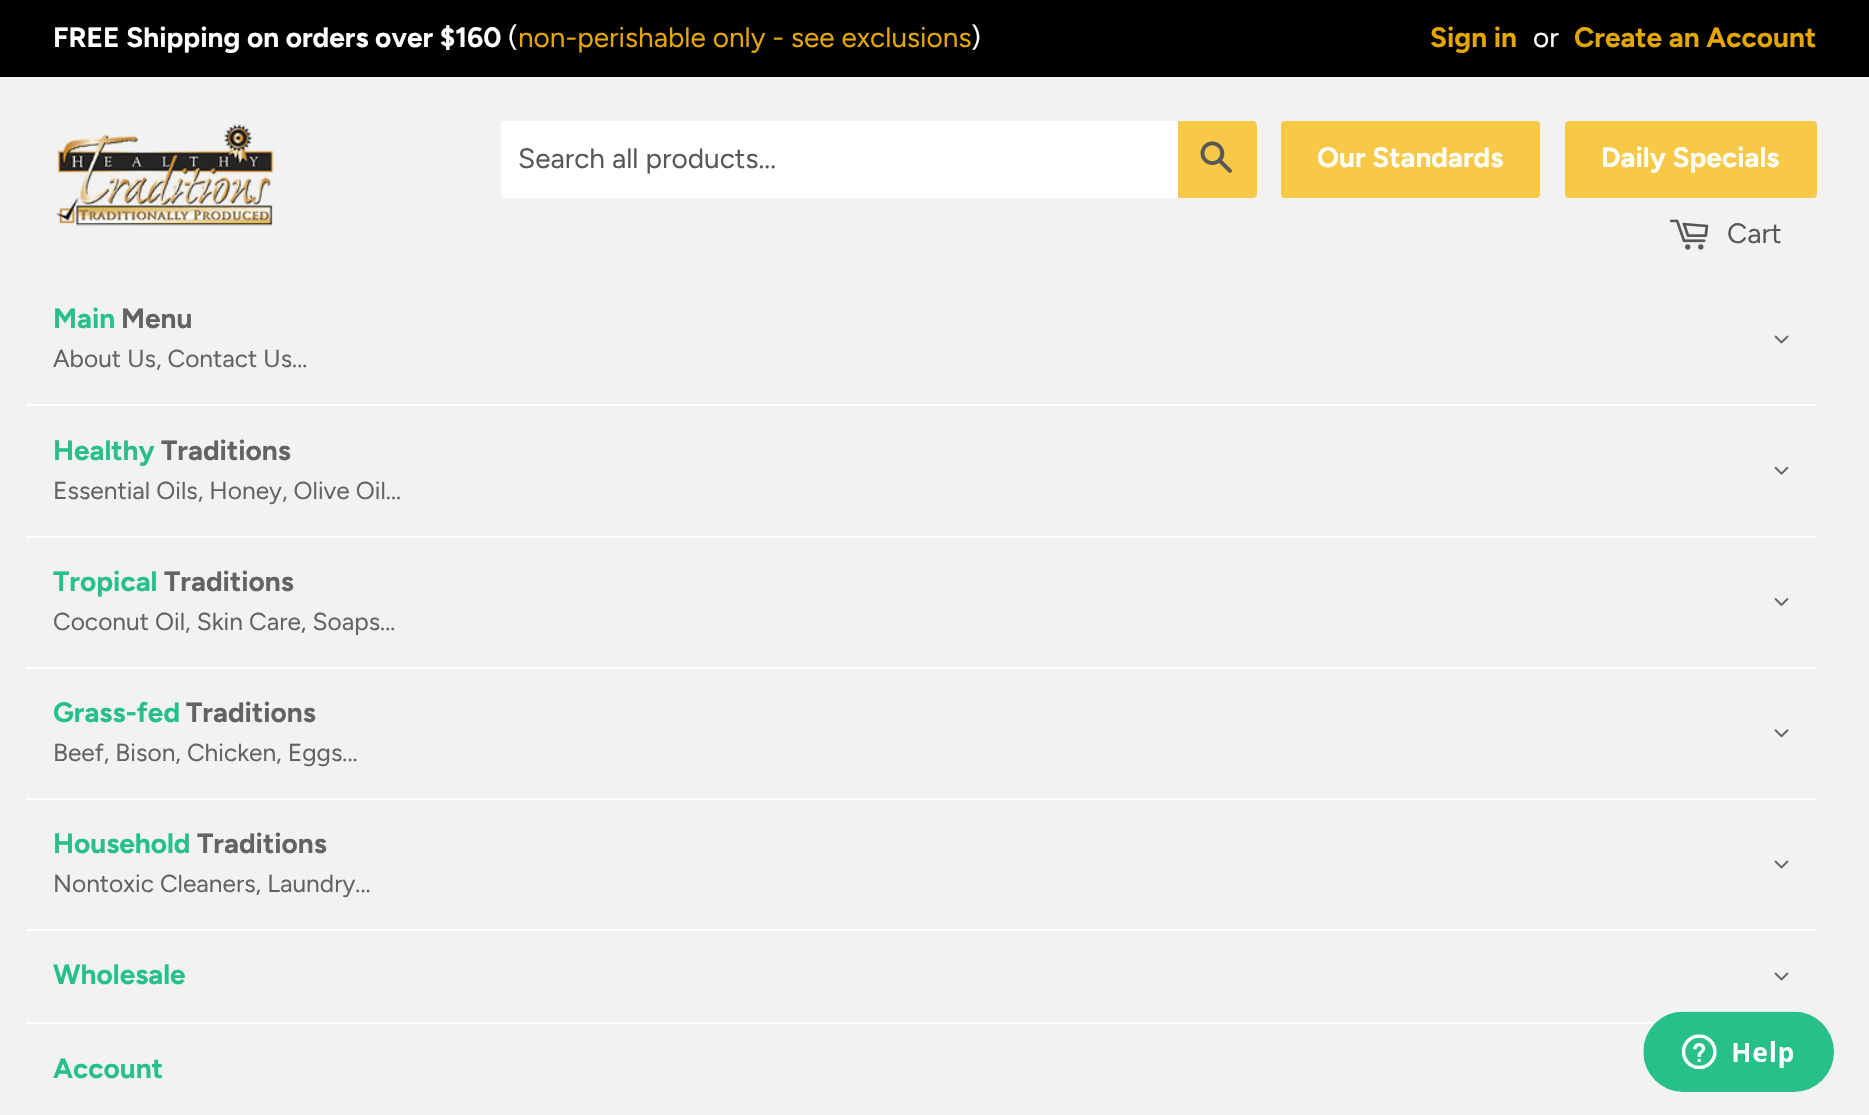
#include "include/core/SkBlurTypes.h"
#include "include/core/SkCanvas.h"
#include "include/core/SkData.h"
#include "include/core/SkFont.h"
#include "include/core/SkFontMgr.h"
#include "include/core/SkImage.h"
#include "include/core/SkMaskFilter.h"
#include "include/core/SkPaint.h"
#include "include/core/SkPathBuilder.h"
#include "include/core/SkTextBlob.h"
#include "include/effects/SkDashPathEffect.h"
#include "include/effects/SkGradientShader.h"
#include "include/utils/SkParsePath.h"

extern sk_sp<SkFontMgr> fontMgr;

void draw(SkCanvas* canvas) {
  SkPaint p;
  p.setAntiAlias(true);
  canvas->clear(SkColorSetRGB(242, 242, 242));
  canvas->drawImageRect(SkImages::DeferredFromEncodedData(SkData::MakeFromFileName("images/1.png")), SkRect::MakeLTRB(56, 124, 274, 226), SkSamplingOptions());
  p.setColor(SK_ColorBLACK);
  canvas->drawRect(SkRect::MakeLTRB(0, 0, 1869, 77), p);
  p.setColor(SK_ColorWHITE);
  canvas->drawRoundRect(SkRect::MakeLTRB(501, 121, 1257, 198), 4, 4, p);
  p.setColor(SkColorSetRGB(247, 201, 70));
  canvas->drawPath(SkPathBuilder().moveTo(1178, 121).lineTo(1253, 121).cubicTo(1255, 121, 1257, 123, 1257, 125).lineTo(1257, 194).cubicTo(1257, 196, 1255, 198, 1253, 198).lineTo(1178, 198).close().detach(), p);
  canvas->drawImageRect(SkImages::DeferredFromEncodedData(SkData::MakeFromFileName("images/2.png")), SkRect::MakeLTRB(1200, 141, 1232, 173), SkSamplingOptions());
  canvas->drawRoundRect(SkRect::MakeLTRB(1281, 121, 1540, 198), 4, 4, p);
  canvas->drawRoundRect(SkRect::MakeLTRB(1565, 121, 1817, 198), 4, 4, p);
  canvas->drawImageRect(SkImages::DeferredFromEncodedData(SkData::MakeFromFileName("images/3.png")), SkRect::MakeLTRB(1669, 219, 1709, 250), SkSamplingOptions());
  p.setColor(SK_ColorWHITE);
  canvas->drawRect(SkRect::MakeLTRB(26, 404, 1817, 406), p);
  canvas->drawImageRect(SkImages::DeferredFromEncodedData(SkData::MakeFromFileName("images/4.png")), SkRect::MakeLTRB(1774, 335, 1789, 344), SkSamplingOptions());
  canvas->drawRect(SkRect::MakeLTRB(26, 536, 1817, 538), p);
  canvas->drawImageRect(SkImages::DeferredFromEncodedData(SkData::MakeFromFileName("images/5.png")), SkRect::MakeLTRB(1774, 466, 1789, 475), SkSamplingOptions());
  canvas->drawRect(SkRect::MakeLTRB(26, 667, 1817, 669), p);
  canvas->drawImageRect(SkImages::DeferredFromEncodedData(SkData::MakeFromFileName("images/6.png")), SkRect::MakeLTRB(1774, 598, 1789, 606), SkSamplingOptions());
  canvas->drawRect(SkRect::MakeLTRB(26, 798, 1817, 800), p);
  canvas->drawImageRect(SkImages::DeferredFromEncodedData(SkData::MakeFromFileName("images/7.png")), SkRect::MakeLTRB(1774, 729, 1789, 738), SkSamplingOptions());
  canvas->drawRect(SkRect::MakeLTRB(26, 929, 1817, 931), p);
  canvas->drawImageRect(SkImages::DeferredFromEncodedData(SkData::MakeFromFileName("images/4.png")), SkRect::MakeLTRB(1774, 860, 1789, 869), SkSamplingOptions());
  canvas->drawRect(SkRect::MakeLTRB(26, 1022, 1657, 1024), p);
  canvas->drawImageRect(SkImages::DeferredFromEncodedData(SkData::MakeFromFileName("images/4.png")), SkRect::MakeLTRB(1774, 972, 1789, 981), SkSamplingOptions());
  canvas->drawImageRect(SkImages::DeferredFromEncodedData(SkData::MakeFromFileName("images/8.png")), SkRect::MakeLTRB(1643, 1011, 1834, 1092), SkSamplingOptions());
  SkFont font1(fontMgr->matchFamilyStyle("Figtree", SkFontStyle::Bold()), 28);
  font1.setSubpixel(true);
  canvas->drawString("FREE Shipping on orders over $160", 53, 47, font1, p);
  SkFont font2(fontMgr->matchFamilyStyle("Figtree", SkFontStyle::Normal()), 28);
  font2.setSubpixel(true);
  canvas->drawString("(", 508, 47, font2, p);
  p.setColor(SkColorSetRGB(228, 166, 0));
  canvas->drawString("non-perishable only - see exclusions", 518, 47, font2, p);
  p.setColor(SK_ColorWHITE);
  canvas->drawString(")", 971, 47, font2, p);
  p.setColor(SkColorSetRGB(228, 166, 0));
  canvas->drawString("Sign in", 1430, 47, font1, p);
  p.setColor(SK_ColorWHITE);
  canvas->drawString("or", 1533, 47, font2, p);
  p.setColor(SkColorSetRGB(228, 166, 0));
  canvas->drawString("Create an Account", 1574, 47, font1, p);
  p.setColor(SkColorSetRGB(88, 88, 88));
  canvas->drawString("Search all products...", 518, 168, font2, p);
  p.setColor(SK_ColorWHITE);
  canvas->drawString("Our Standards", 1317, 167, font1, p);
  canvas->drawString("Daily Specials", 1601, 167, font1, p);
  p.setColor(SkColorSetRGB(88, 88, 88));
  canvas->drawString("Cart", 1727, 243, font2, p);
  p.setColor(SkColorSetRGB(39, 192, 137));
  canvas->drawString("Main", 53, 328, font1, p);
  p.setColor(SkColorSetRGB(99, 99, 99));
  canvas->drawString("Menu", 121, 328, font1, p);
  SkFont font3(fontMgr->matchFamilyStyle("Figtree", SkFontStyle::Normal()), 24.5f);
  font3.setSubpixel(true);
  canvas->drawString("About Us, Contact Us...", 53, 367, font3, p);
  p.setColor(SkColorSetRGB(39, 192, 137));
  canvas->drawString("Healthy", 53, 460, font1, p);
  p.setColor(SkColorSetRGB(99, 99, 99));
  canvas->drawString("Traditions", 161, 460, font1, p);
  canvas->drawString("Essential Oils, Honey, Olive Oil...", 53, 499, font3, p);
  p.setColor(SkColorSetRGB(39, 192, 137));
  canvas->drawString("Tropical", 53, 591, font1, p);
  p.setColor(SkColorSetRGB(99, 99, 99));
  canvas->drawString("Traditions", 164, 591, font1, p);
  canvas->drawString("Coconut Oil, Skin Care, Soaps...", 53, 630, font3, p);
  p.setColor(SkColorSetRGB(39, 192, 137));
  canvas->drawString("Grass-fed", 53, 722, font1, p);
  p.setColor(SkColorSetRGB(99, 99, 99));
  canvas->drawString("Traditions", 186, 722, font1, p);
  canvas->drawString("Beef, Bison, Chicken, Eggs...", 53, 761, font3, p);
  p.setColor(SkColorSetRGB(39, 192, 137));
  canvas->drawString("Household", 53, 853, font1, p);
  p.setColor(SkColorSetRGB(99, 99, 99));
  canvas->drawString("Traditions", 197, 853, font1, p);
  canvas->drawString("Nontoxic Cleaners, Laundry...", 53, 892, font3, p);
  p.setColor(SkColorSetRGB(39, 192, 137));
  canvas->drawString("Wholesale", 53, 984, font1, p);
  canvas->drawString("Account", 53, 1078, font1, p);
}
